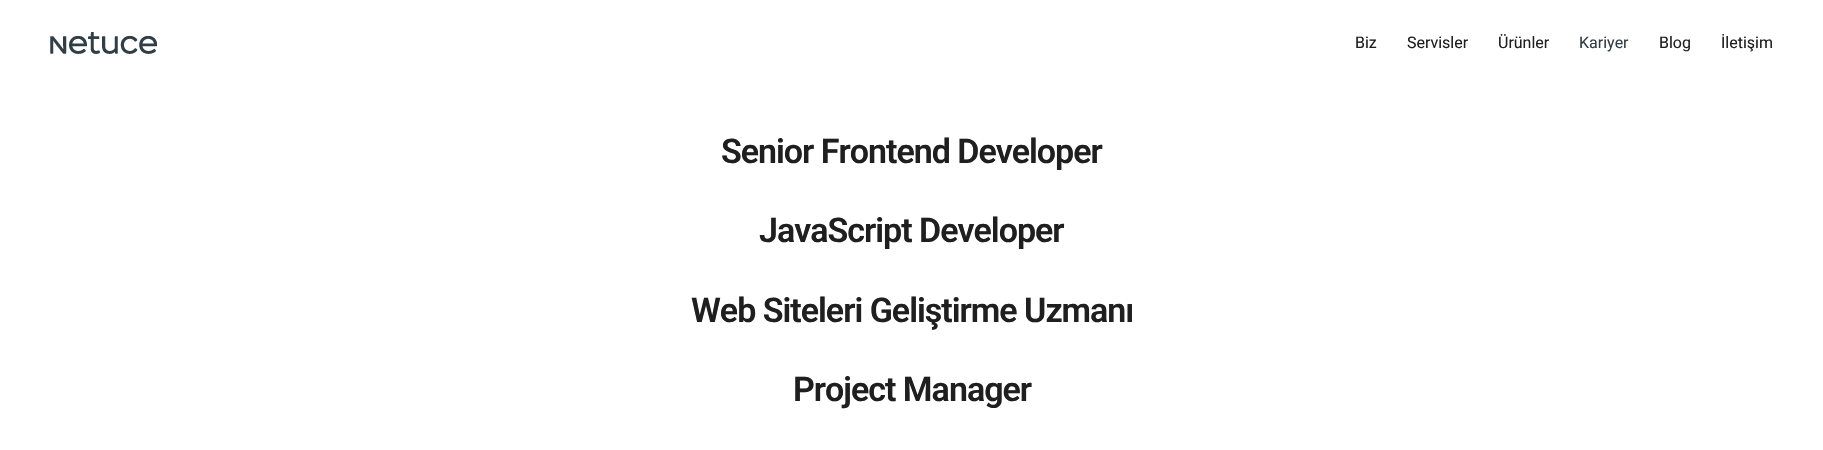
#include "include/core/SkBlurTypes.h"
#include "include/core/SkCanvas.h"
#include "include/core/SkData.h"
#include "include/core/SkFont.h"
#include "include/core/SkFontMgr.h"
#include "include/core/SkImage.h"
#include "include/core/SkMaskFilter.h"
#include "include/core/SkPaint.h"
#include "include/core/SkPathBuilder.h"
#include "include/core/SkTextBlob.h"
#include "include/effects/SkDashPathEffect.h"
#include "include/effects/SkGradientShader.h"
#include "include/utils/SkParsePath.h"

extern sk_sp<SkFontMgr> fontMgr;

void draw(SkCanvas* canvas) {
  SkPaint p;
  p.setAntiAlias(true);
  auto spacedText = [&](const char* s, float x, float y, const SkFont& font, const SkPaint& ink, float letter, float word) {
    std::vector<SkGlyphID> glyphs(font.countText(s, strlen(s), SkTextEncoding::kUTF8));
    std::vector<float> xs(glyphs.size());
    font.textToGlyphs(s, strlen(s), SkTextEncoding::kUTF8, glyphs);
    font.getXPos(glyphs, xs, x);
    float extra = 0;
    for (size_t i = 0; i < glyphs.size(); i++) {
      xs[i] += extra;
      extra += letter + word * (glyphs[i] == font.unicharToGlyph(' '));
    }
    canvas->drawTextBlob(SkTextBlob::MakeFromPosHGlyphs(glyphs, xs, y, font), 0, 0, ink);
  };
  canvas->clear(SK_ColorWHITE);
  canvas->drawImageRect(SkImages::DeferredFromEncodedData(SkData::MakeFromFileName("images/1.png")), SkRect::MakeLTRB(50, 32, 157, 54), SkSamplingOptions());
  SkFont font1(fontMgr->matchFamilyStyle("Roboto", SkFontStyle::Normal()), 16);
  font1.setSubpixel(true);
  p.setColor(SkColorSetRGB(31, 31, 31));
  canvas->drawString("Biz", 1355, 48, font1, p);
  canvas->drawString("Servisler", 1407, 48, font1, p);
  canvas->drawString("Ürünler", 1498, 48, font1, p);
  p.setColor(SkColorSetRGB(51, 62, 71));
  canvas->drawString("Kariyer", 1579, 48, font1, p);
  p.setColor(SkColorSetRGB(31, 31, 31));
  canvas->drawString("Blog", 1659, 48, font1, p);
  canvas->drawString("İletişim", 1721, 48, font1, p);
  SkFont font2(fontMgr->matchFamilyStyle("Roboto", SkFontStyle(600, SkFontStyle::kNormal_Width, SkFontStyle::kUpright_Slant)), 34);
  font2.setSubpixel(true);
  spacedText("Senior Frontend Developer", 721, 163, font2, p, -1, 0);
  spacedText("JavaScript Developer", 759, 242, font2, p, -1, 0);
  spacedText("Web Siteleri Geliştirme Uzmanı", 691, 322, font2, p, -1, 0);
  spacedText("Project Manager", 793, 401, font2, p, -1, 0);
}
